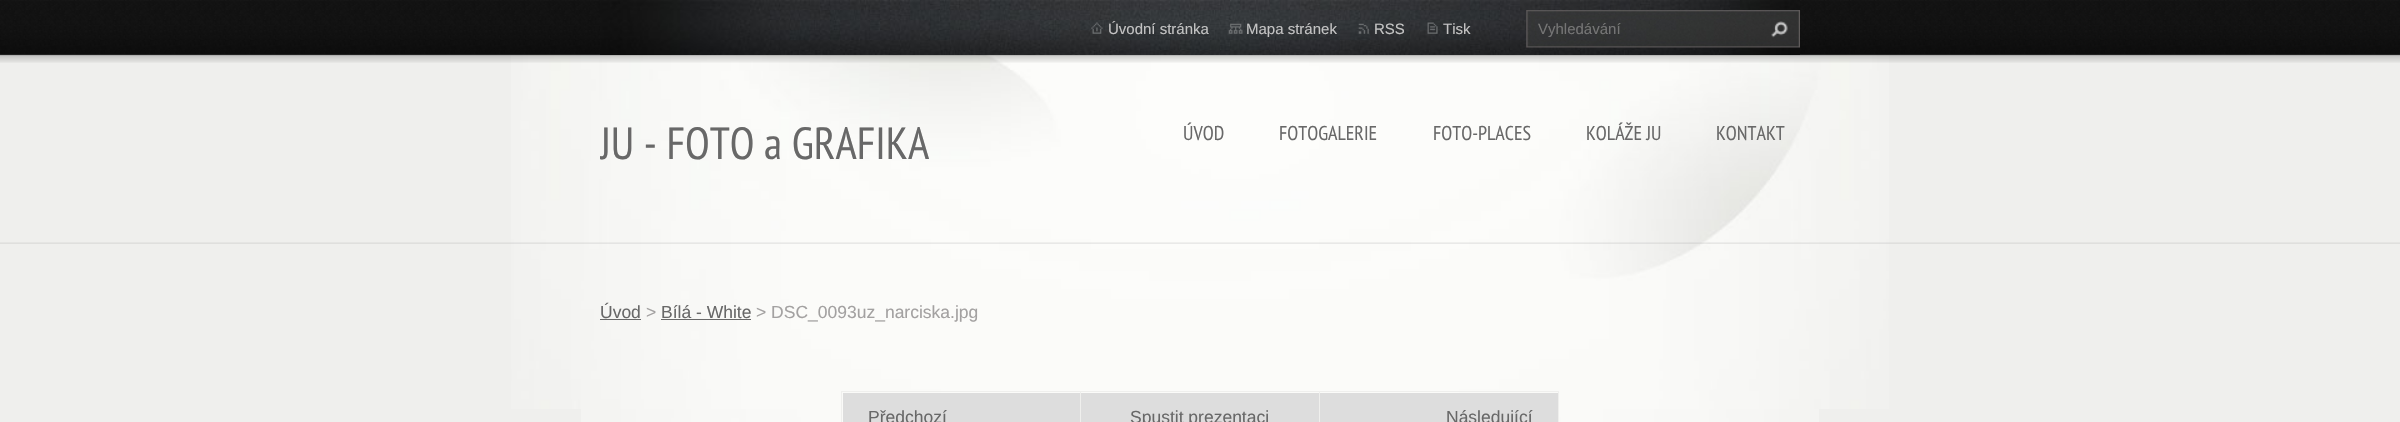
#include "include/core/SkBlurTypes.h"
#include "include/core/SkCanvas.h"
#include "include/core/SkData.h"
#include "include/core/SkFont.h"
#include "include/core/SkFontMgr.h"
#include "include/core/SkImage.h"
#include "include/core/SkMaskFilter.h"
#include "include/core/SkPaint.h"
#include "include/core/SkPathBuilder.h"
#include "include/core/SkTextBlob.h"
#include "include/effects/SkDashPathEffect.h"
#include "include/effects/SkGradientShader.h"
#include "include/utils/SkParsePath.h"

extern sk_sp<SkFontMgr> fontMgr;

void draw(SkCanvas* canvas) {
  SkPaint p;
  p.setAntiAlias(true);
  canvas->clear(SkColorSetRGB(239, 239, 237));
  canvas->drawImageRect(SkImages::DeferredFromEncodedData(SkData::MakeFromFileName("images/1.png")), SkRect::MakeLTRB(581, 409, 1819, 422), SkSamplingOptions());
  canvas->drawImageRect(SkImages::DeferredFromEncodedData(SkData::MakeFromFileName("images/2.png")), SkRect::MakeLTRB(511, 54, 1889, 409), SkSamplingOptions());
  canvas->drawImageRect(SkImages::DeferredFromEncodedData(SkData::MakeFromFileName("images/3.png")), SkRect::MakeLTRB(0, 242, 2400, 244), SkSamplingOptions());
  canvas->drawImageRect(SkImages::DeferredFromEncodedData(SkData::MakeFromFileName("images/4.png")), SkRect::MakeLTRB(0, 0, 2400, 63), SkSamplingOptions());
  canvas->drawImageRect(SkImages::DeferredFromEncodedData(SkData::MakeFromFileName("images/5.png")), SkRect::MakeLTRB(600, 0, 1800, 55), SkSamplingOptions());
  canvas->drawImageRect(SkImages::DeferredFromEncodedData(SkData::MakeFromFileName("images/6.png")), SkRect::MakeLTRB(1091, 22, 1103, 34), SkSamplingOptions());
  canvas->drawImageRect(SkImages::DeferredFromEncodedData(SkData::MakeFromFileName("images/7.png")), SkRect::MakeLTRB(1228, 23, 1243, 34), SkSamplingOptions());
  canvas->drawImageRect(SkImages::DeferredFromEncodedData(SkData::MakeFromFileName("images/8.png")), SkRect::MakeLTRB(1358, 23, 1369, 34), SkSamplingOptions());
  canvas->drawImageRect(SkImages::DeferredFromEncodedData(SkData::MakeFromFileName("images/9.png")), SkRect::MakeLTRB(1427, 22, 1438, 34), SkSamplingOptions());
  canvas->drawImageRect(SkImages::DeferredFromEncodedData(SkData::MakeFromFileName("images/10.png")), SkRect::MakeLTRB(1526, 10, 1800, 48), SkSamplingOptions());
  canvas->drawImageRect(SkImages::DeferredFromEncodedData(SkData::MakeFromFileName("images/11.png")), SkRect::MakeLTRB(1771, 21, 1788, 38), SkSamplingOptions());
  p.setColor(SkColorSetRGB(104, 104, 104));
  canvas->drawRect(SkRect::MakeLTRB(600, 319, 641, 320), p);
  canvas->drawRect(SkRect::MakeLTRB(661, 319, 751, 320), p);
  p.setColor(SkColorSetRGB(239, 239, 237));
  canvas->drawRect(SkRect::MakeLTRB(841, 391, 1559, 392), p);
  canvas->drawRect(SkRect::MakeLTRB(841, 391, 842, 422), p);
  p.setColor(SkColorSetRGB(221, 221, 221));
  canvas->drawRect(SkRect::MakeLTRB(843, 393, 1080, 422), p);
  p.setColor(SkColorSetRGB(239, 239, 237));
  canvas->drawRect(SkRect::MakeLTRB(1080, 391, 1081, 422), p);
  p.setColor(SkColorSetRGB(221, 221, 221));
  canvas->drawRect(SkRect::MakeLTRB(1081, 393, 1319, 422), p);
  p.setColor(SkColorSetRGB(239, 239, 237));
  canvas->drawRect(SkRect::MakeLTRB(1319, 391, 1320, 422), p);
  p.setColor(SkColorSetRGB(221, 221, 221));
  canvas->drawRect(SkRect::MakeLTRB(1320, 393, 1558, 422), p);
  p.setColor(SkColorSetRGB(239, 239, 237));
  canvas->drawRect(SkRect::MakeLTRB(1558, 391, 1559, 422), p);
  SkFont font1(fontMgr->matchFamilyStyle("Liberation Sans", SkFontStyle::Normal()), 15);
  font1.setSubpixel(true);
  p.setColor(SkColorSetRGB(195, 195, 195));
  canvas->drawString("Úvodní stránka", 1108, 34, font1, p);
  canvas->drawString("Mapa stránek", 1246, 34, font1, p);
  canvas->drawString("RSS", 1374, 34, font1, p);
  canvas->drawString("Tisk", 1443, 34, font1, p);
  p.setColor(SkColorSetRGB(117, 117, 117));
  canvas->drawString("Vyhledávání", 1538, 34, font1, p);
  canvas->save();
  canvas->clipRect(SkRect::MakeLTRB(600, 100, 975, 219));
  SkFont font2(fontMgr->matchFamilyStyle("PT Sans Narrow", SkFontStyle::Normal()), 45);
  font2.setSubpixel(true);
  p.setColor(SkColorSetRGB(104, 104, 104));
  canvas->drawString("JU - FOTO a GRAFIKA", 600, 159, font2, p);
  canvas->restore();
  SkFont font3(fontMgr->matchFamilyStyle("PT Sans Narrow", SkFontStyle::Normal()), 20);
  font3.setSubpixel(true);
  canvas->drawString("ÚVOD", 1183, 140, font3, p);
  canvas->drawString("FOTOGALERIE", 1279, 140, font3, p);
  canvas->drawString("FOTO-PLACES", 1433, 140, font3, p);
  canvas->drawString("KOLÁŽE JU", 1586, 140, font3, p);
  canvas->drawString("KONTAKT", 1716, 140, font3, p);
  SkFont font4(fontMgr->matchFamilyStyle("Liberation Sans", SkFontStyle::Normal()), 17.5f);
  font4.setSubpixel(true);
  canvas->drawString("Úvod", 600, 318, font4, p);
  p.setColor(SkColorSetRGB(163, 161, 161));
  canvas->drawString(">", 646, 318, font4, p);
  p.setColor(SkColorSetRGB(104, 104, 104));
  canvas->drawString("Bílá - White", 661, 318, font4, p);
  p.setColor(SkColorSetRGB(163, 161, 161));
  canvas->drawString("> DSC_0093uz_narciska.jpg", 756, 318, font4, p);
  p.setColor(SkColorSetRGB(104, 104, 104));
  canvas->drawString("Předchozí", 868, 423, font4, p);
  canvas->drawString("Spustit prezentaci", 1130, 423, font4, p);
  canvas->drawString("Následující", 1446, 423, font4, p);
}
